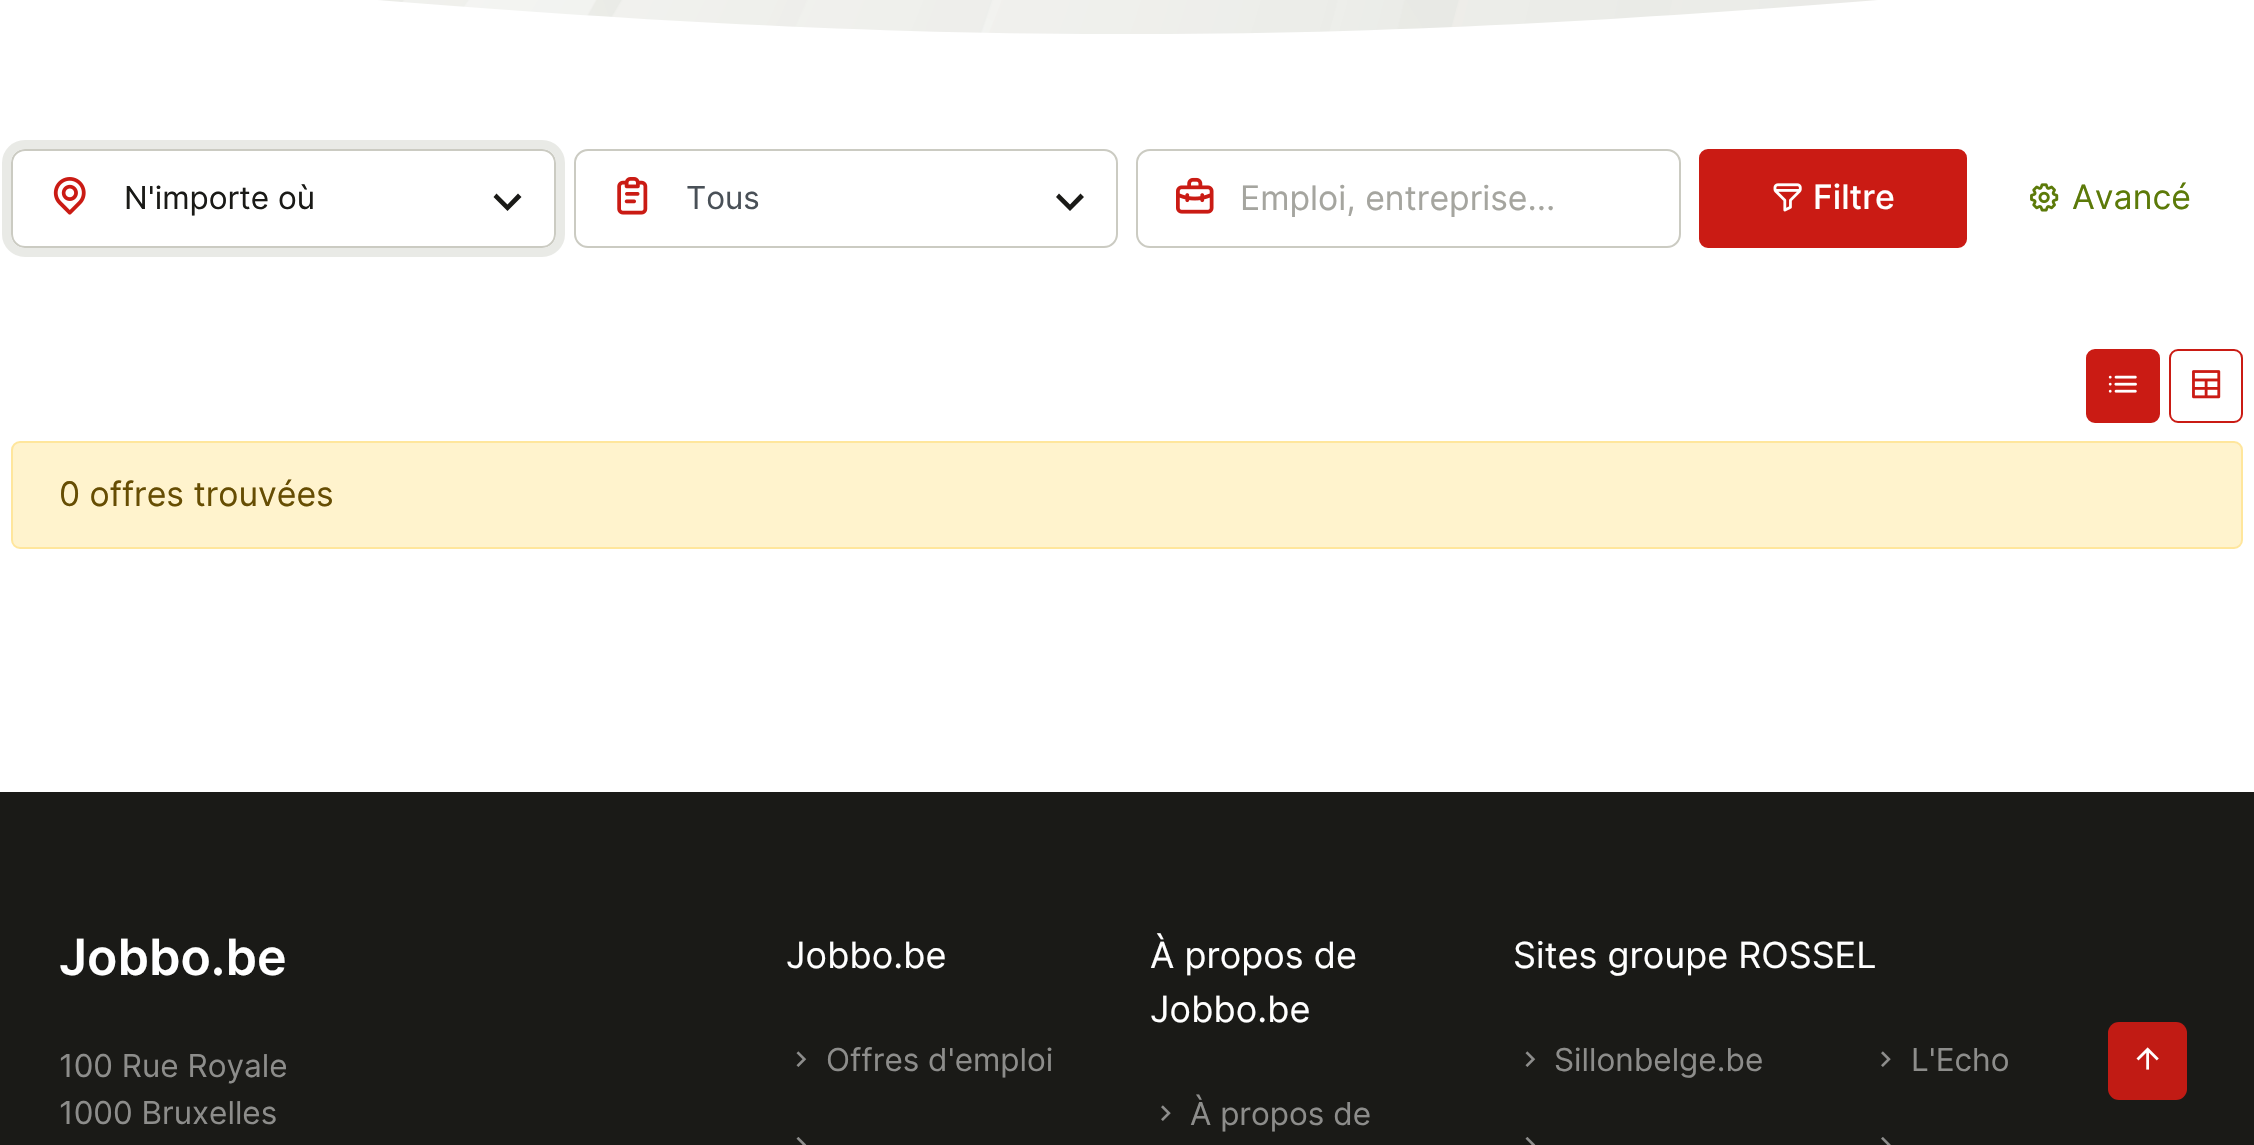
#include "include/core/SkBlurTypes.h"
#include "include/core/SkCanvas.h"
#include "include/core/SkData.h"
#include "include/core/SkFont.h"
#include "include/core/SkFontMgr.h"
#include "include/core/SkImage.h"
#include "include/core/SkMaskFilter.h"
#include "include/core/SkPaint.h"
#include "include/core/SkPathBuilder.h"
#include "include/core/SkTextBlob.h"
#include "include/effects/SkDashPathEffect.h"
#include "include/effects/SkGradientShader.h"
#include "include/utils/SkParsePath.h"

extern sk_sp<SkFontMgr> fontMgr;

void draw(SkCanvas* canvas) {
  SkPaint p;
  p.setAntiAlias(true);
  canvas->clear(SK_ColorWHITE);
  canvas->drawImageRect(SkImages::DeferredFromEncodedData(SkData::MakeFromFileName("images/1.png")), SkRect::MakeLTRB(378, 0, 1878, 34), SkSamplingOptions());
  canvas->save();
  canvas->clipRect(SkRect::MakeLTRB(0, 0, 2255, 59));
  p.setColor(SK_ColorWHITE);
  canvas->drawPath(SkPathBuilder().moveTo(0, -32).lineTo(188, -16).cubicTo(376, 0, 752, 35, 1127, 34).cubicTo(1503, 35, 1879, 0, 2067, -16).lineTo(2254, -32).lineTo(2254, 168).lineTo(0, 168).close().detach(), p);
  canvas->restore();
  p.setStyle(SkPaint::kStroke_Style);
  p.setStrokeWidth(2);
  p.setColor(SkColorSetRGB(203, 203, 194));
  canvas->drawRoundRect(SkRect::MakeLTRB(12, 150, 555, 247), 13, 13, p);
  p.setStrokeWidth(9);
  p.setColor(SkColorSetRGB(233, 234, 230));
  canvas->drawRoundRect(SkRect::MakeLTRB(6.5f, 144.5f, 560.5f, 252.5f), 18.5f, 18.5f, p);
  canvas->drawImageRect(SkImages::DeferredFromEncodedData(SkData::MakeFromFileName("images/2.png")), SkRect::MakeLTRB(53, 177, 86, 215), SkSamplingOptions());
  p.setStyle(SkPaint::kFill_Style);
  p.setColor(SkColorSetRGB(26, 26, 23));
  canvas->drawPath(SkPathBuilder().moveTo(496.5f, 193.5f).lineTo(507.5f, 204.5f).lineTo(518, 193.5f).lineTo(521.5f, 197).lineTo(507.5f, 211).lineTo(493.5f, 197).close().detach(), p);
  p.setStyle(SkPaint::kStroke_Style);
  p.setStrokeWidth(2);
  p.setColor(SkColorSetRGB(203, 203, 194));
  canvas->drawRoundRect(SkRect::MakeLTRB(575, 150, 1117, 247), 13, 13, p);
  canvas->drawImageRect(SkImages::DeferredFromEncodedData(SkData::MakeFromFileName("images/3.png")), SkRect::MakeLTRB(617, 177, 648, 215), SkSamplingOptions());
  p.setStyle(SkPaint::kFill_Style);
  p.setColor(SkColorSetRGB(26, 26, 23));
  canvas->drawPath(SkPathBuilder().moveTo(1059, 193.5f).lineTo(1070, 204.5f).lineTo(1080.5f, 193.5f).lineTo(1084, 197).lineTo(1070, 211).lineTo(1056, 197).close().detach(), p);
  p.setStyle(SkPaint::kStroke_Style);
  p.setColor(SkColorSetRGB(203, 203, 194));
  canvas->drawRoundRect(SkRect::MakeLTRB(1137, 150, 1680, 247), 13, 13, p);
  canvas->drawImageRect(SkImages::DeferredFromEncodedData(SkData::MakeFromFileName("images/4.png")), SkRect::MakeLTRB(1176, 177, 1214, 214), SkSamplingOptions());
  p.setStyle(SkPaint::kFill_Style);
  p.setColor(SkColorSetRGB(202, 27, 20));
  canvas->drawRoundRect(SkRect::MakeLTRB(1700, 150, 1966, 247), 8, 8, p);
  p.setStyle(SkPaint::kStroke_Style);
  canvas->drawRoundRect(SkRect::MakeLTRB(1700, 150, 1966, 247), 8, 8, p);
  canvas->drawImageRect(SkImages::DeferredFromEncodedData(SkData::MakeFromFileName("images/5.png")), SkRect::MakeLTRB(1773, 183, 1802, 212), SkSamplingOptions());
  canvas->drawImageRect(SkImages::DeferredFromEncodedData(SkData::MakeFromFileName("images/6.png")), SkRect::MakeLTRB(2030, 183, 2059, 212), SkSamplingOptions());
  p.setStyle(SkPaint::kFill_Style);
  canvas->drawRoundRect(SkRect::MakeLTRB(2087, 350, 2159, 422), 8, 8, p);
  p.setStyle(SkPaint::kStroke_Style);
  canvas->drawRoundRect(SkRect::MakeLTRB(2087, 350, 2159, 422), 8, 8, p);
  canvas->drawImageRect(SkImages::DeferredFromEncodedData(SkData::MakeFromFileName("images/7.png")), SkRect::MakeLTRB(2108, 375, 2137, 393), SkSamplingOptions());
  canvas->drawRoundRect(SkRect::MakeLTRB(2170, 350, 2242, 422), 8, 8, p);
  canvas->drawImageRect(SkImages::DeferredFromEncodedData(SkData::MakeFromFileName("images/8.png")), SkRect::MakeLTRB(2192, 370, 2221, 399), SkSamplingOptions());
  p.setStyle(SkPaint::kFill_Style);
  p.setColor(SkColorSetRGB(255, 243, 205));
  canvas->drawRoundRect(SkRect::MakeLTRB(12, 442, 2242, 548), 8, 8, p);
  p.setStyle(SkPaint::kStroke_Style);
  p.setColor(SkColorSetRGB(255, 230, 156));
  canvas->drawRoundRect(SkRect::MakeLTRB(12, 442, 2242, 548), 8, 8, p);
  p.setStyle(SkPaint::kFill_Style);
  p.setColor(SkColorSetRGB(26, 26, 23));
  canvas->drawRect(SkRect::MakeLTRB(0, 792, 2254, 1145), p);
  canvas->drawImageRect(SkImages::DeferredFromEncodedData(SkData::MakeFromFileName("images/9.png")), SkRect::MakeLTRB(796, 1051, 807, 1067), SkSamplingOptions());
  canvas->drawImageRect(SkImages::DeferredFromEncodedData(SkData::MakeFromFileName("images/10.png")), SkRect::MakeLTRB(796, 1137, 807, 1145), SkSamplingOptions());
  canvas->drawImageRect(SkImages::DeferredFromEncodedData(SkData::MakeFromFileName("images/11.png")), SkRect::MakeLTRB(1161, 1105, 1171, 1121), SkSamplingOptions());
  canvas->drawImageRect(SkImages::DeferredFromEncodedData(SkData::MakeFromFileName("images/9.png")), SkRect::MakeLTRB(1525, 1051, 1536, 1067), SkSamplingOptions());
  canvas->drawImageRect(SkImages::DeferredFromEncodedData(SkData::MakeFromFileName("images/11.png")), SkRect::MakeLTRB(1881, 1051, 1891, 1067), SkSamplingOptions());
  canvas->drawImageRect(SkImages::DeferredFromEncodedData(SkData::MakeFromFileName("images/10.png")), SkRect::MakeLTRB(1525, 1137, 1536, 1145), SkSamplingOptions());
  canvas->drawImageRect(SkImages::DeferredFromEncodedData(SkData::MakeFromFileName("images/12.png")), SkRect::MakeLTRB(1881, 1137, 1891, 1145), SkSamplingOptions());
  p.setColor(SkColorSetRGB(193, 27, 20));
  canvas->drawRoundRect(SkRect::MakeLTRB(2108, 1022, 2187, 1100), 11, 11, p);
  canvas->drawImageRect(SkImages::DeferredFromEncodedData(SkData::MakeFromFileName("images/13.png")), SkRect::MakeLTRB(2136, 1047, 2159, 1070), SkSamplingOptions());
  SkFont font1(fontMgr->matchFamilyStyle("Inter", SkFontStyle::Normal()), 31.5f);
  font1.setSubpixel(true);
  p.setColor(SkColorSetRGB(26, 26, 23));
  canvas->drawString("N'importe où", 124, 209, font1, p);
  p.setColor(SkColorSetRGB(73, 80, 87));
  canvas->drawString("Tous", 686, 209, font1, p);
  SkFont font2(fontMgr->matchFamilyStyle("Inter", SkFontStyle::Normal()), 33.75f);
  font2.setSubpixel(true);
  p.setColor(SkColorSetRGB(165, 165, 159));
  canvas->drawString("Emploi, entreprise...", 1240, 210, font2, p);
  SkFont font3(fontMgr->matchFamilyStyle("Inter", SkFontStyle(500, SkFontStyle::kNormal_Width, SkFontStyle::kUpright_Slant)), 33.75f);
  font3.setSubpixel(true);
  p.setColor(SK_ColorWHITE);
  canvas->drawString("Filtre", 1813, 209, font3, p);
  p.setColor(SkColorSetRGB(92, 122, 9));
  canvas->drawString("Avancé", 2072, 209, font2, p);
  p.setColor(SkColorSetRGB(102, 77, 3));
  canvas->drawString("0 offres trouvées", 59, 506, font2, p);
  SkFont font4(fontMgr->matchFamilyStyle("Inter", SkFontStyle(600, SkFontStyle::kNormal_Width, SkFontStyle::kUpright_Slant)), 50);
  font4.setSubpixel(true);
  p.setColor(SK_ColorWHITE);
  canvas->drawString("Jobbo.be", 59, 975, font4, p);
  p.setColor(SkColorSetRGB(141, 141, 139));
  canvas->drawString("100 Rue Royale", 59, 1077, font1, p);
  canvas->drawString("1000 Bruxelles", 59, 1124, font1, p);
  SkFont font5(fontMgr->matchFamilyStyle("Inter", SkFontStyle::Normal()), 36);
  font5.setSubpixel(true);
  p.setColor(SK_ColorWHITE);
  canvas->drawString("Jobbo.be", 786, 968, font5, p);
  p.setColor(SkColorSetRGB(141, 141, 139));
  canvas->drawString("Offres d'emploi", 826, 1071, font1, p);
  p.setColor(SK_ColorWHITE);
  canvas->drawString("À propos de", 1150, 968, font5, p);
  canvas->drawString("Jobbo.be", 1150, 1022, font5, p);
  p.setColor(SkColorSetRGB(141, 141, 139));
  canvas->drawString("À propos de", 1190, 1125, font1, p);
  p.setColor(SK_ColorWHITE);
  canvas->drawString("Sites groupe ROSSEL", 1513, 968, font5, p);
  p.setColor(SkColorSetRGB(141, 141, 139));
  canvas->drawString("Sillonbelge.be", 1554, 1071, font1, p);
  canvas->drawString("L'Echo", 1911, 1071, font1, p);
}
